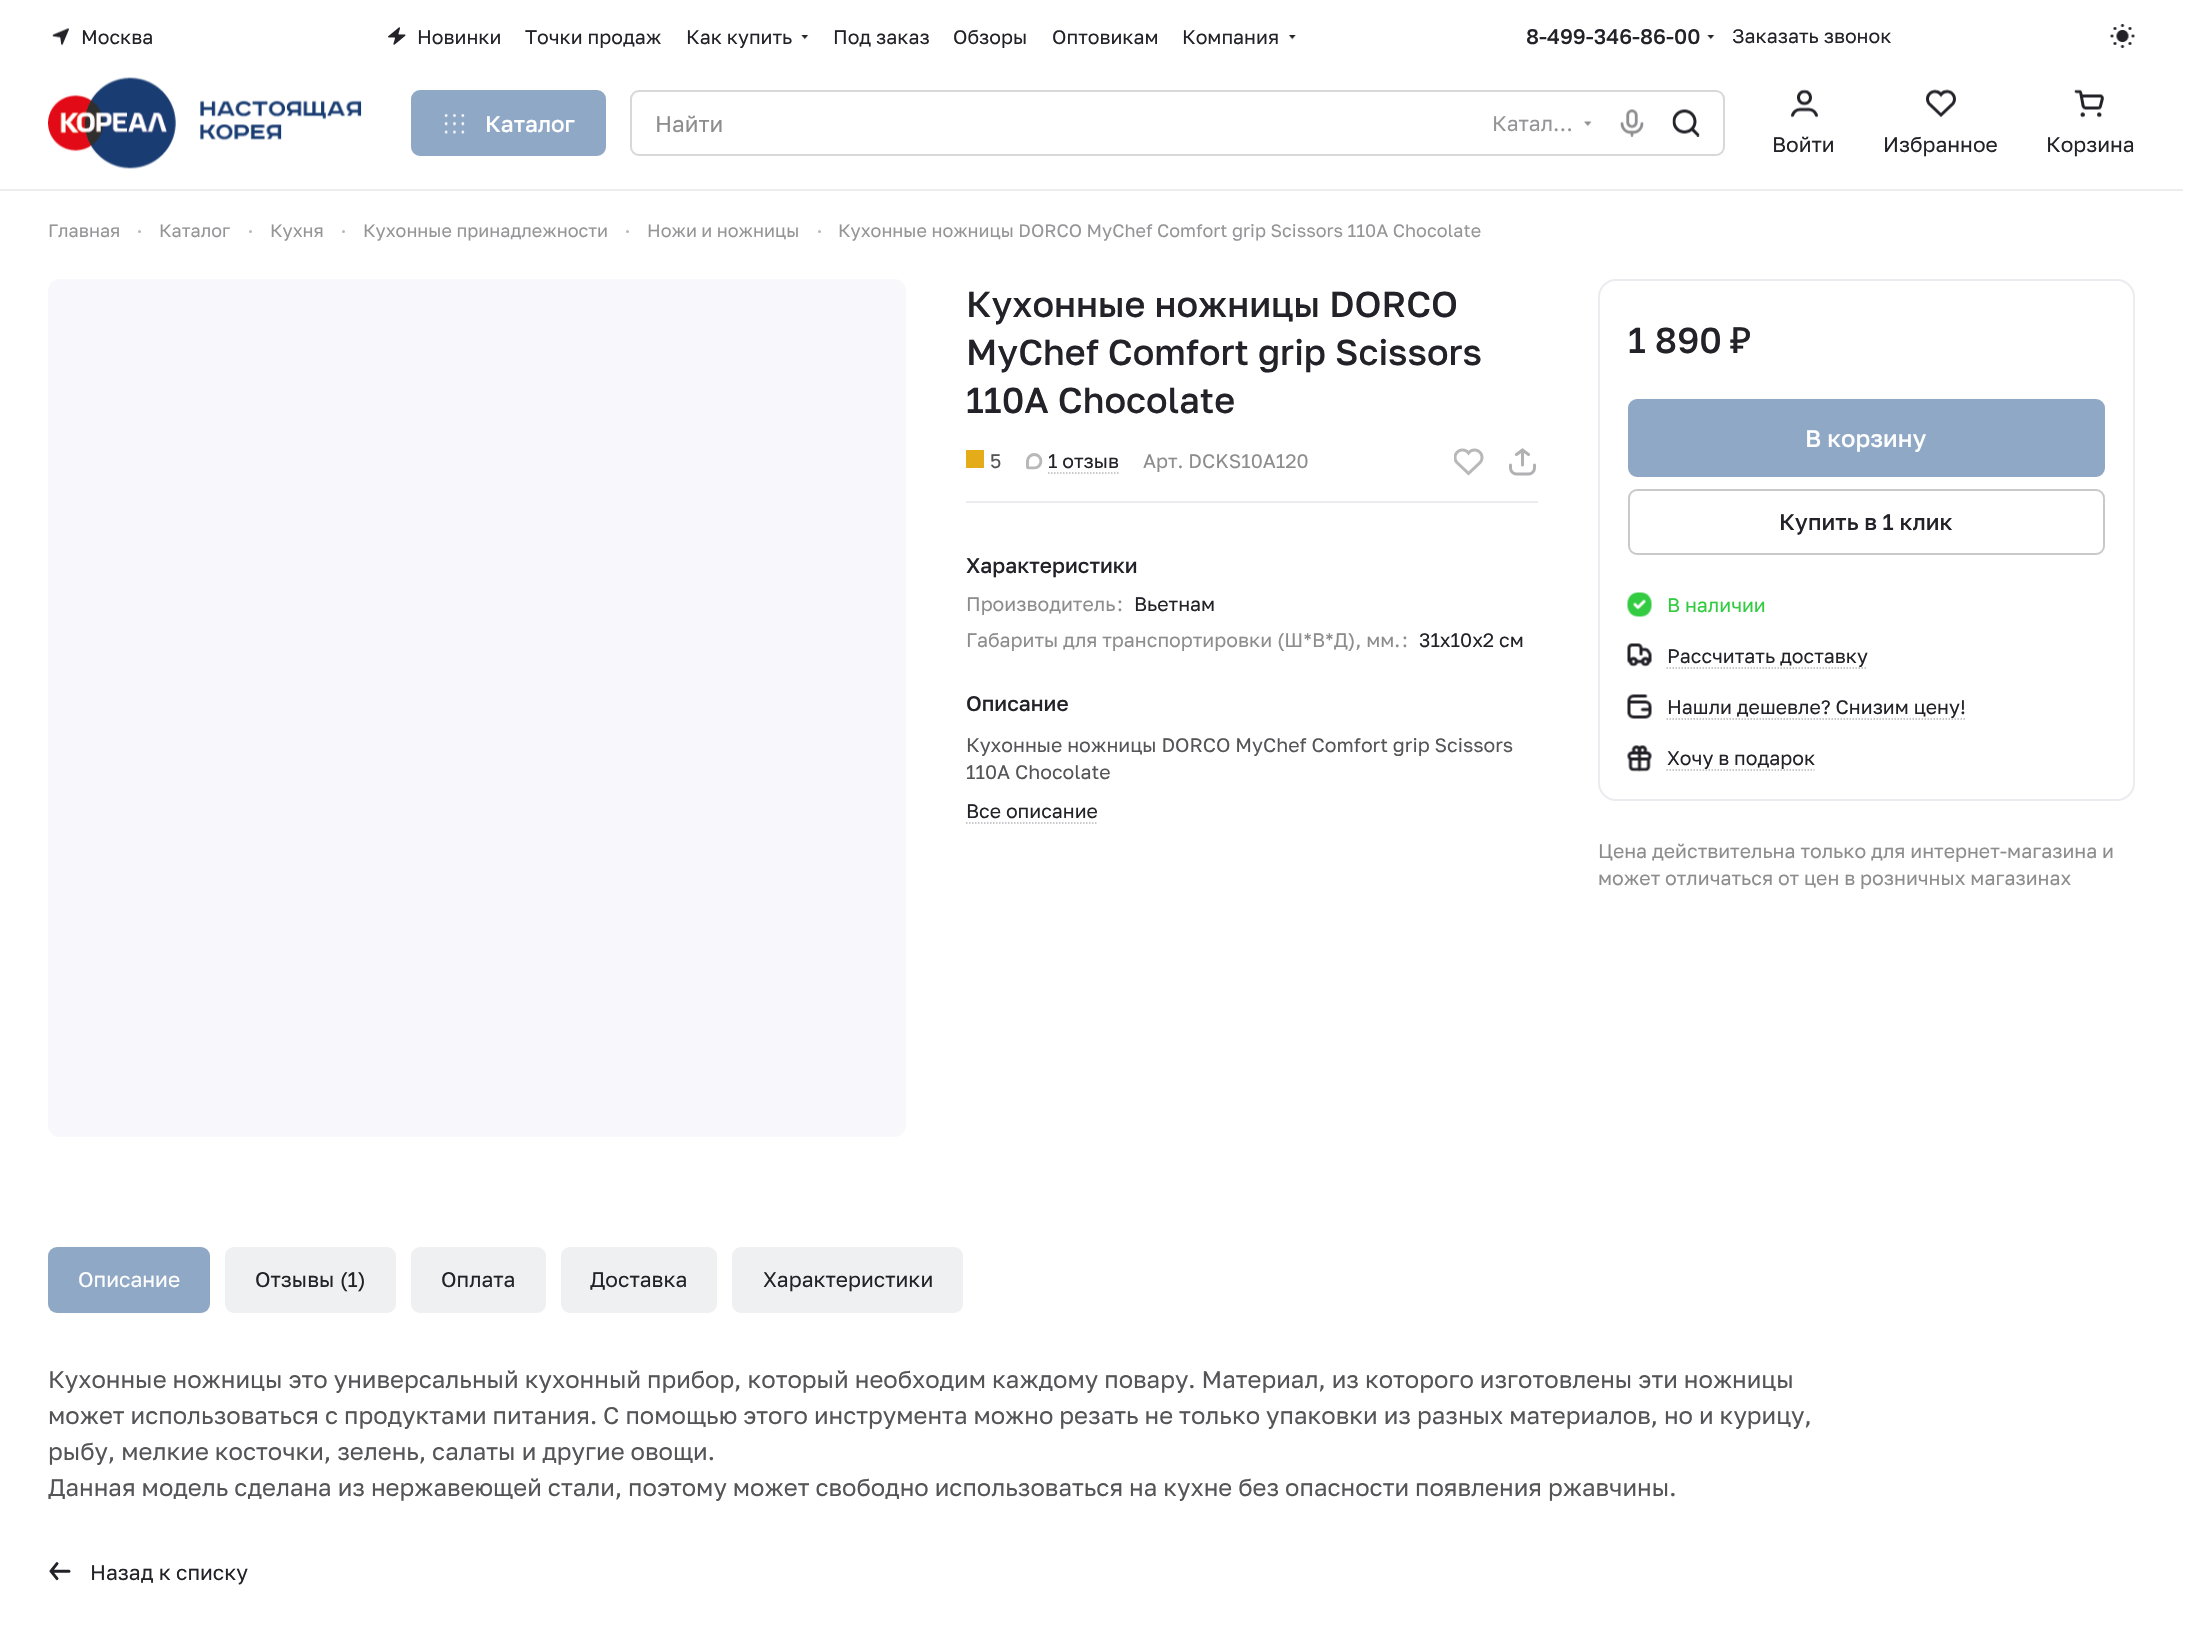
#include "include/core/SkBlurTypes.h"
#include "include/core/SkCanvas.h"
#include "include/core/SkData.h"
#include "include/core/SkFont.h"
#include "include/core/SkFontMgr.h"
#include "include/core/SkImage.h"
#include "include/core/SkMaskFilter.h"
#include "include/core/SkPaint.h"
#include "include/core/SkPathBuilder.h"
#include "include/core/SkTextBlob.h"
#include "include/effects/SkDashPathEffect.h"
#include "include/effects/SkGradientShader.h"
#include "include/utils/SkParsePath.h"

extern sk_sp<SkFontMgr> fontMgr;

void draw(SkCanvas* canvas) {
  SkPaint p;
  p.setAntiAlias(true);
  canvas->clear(SK_ColorWHITE);
  p.setColor(SkColorSetRGB(237, 237, 237));
  canvas->drawRect(SkRect::MakeLTRB(0, 189, 2183, 191), p);
  canvas->drawImageRect(SkImages::DeferredFromEncodedData(SkData::MakeFromFileName("images/1.png")), SkRect::MakeLTRB(52, 28, 69, 46), SkSamplingOptions());
  canvas->drawImageRect(SkImages::DeferredFromEncodedData(SkData::MakeFromFileName("images/2.png")), SkRect::MakeLTRB(388, 27, 406, 45), SkSamplingOptions());
  canvas->drawImageRect(SkImages::DeferredFromEncodedData(SkData::MakeFromFileName("images/3.png")), SkRect::MakeLTRB(801, 35, 809, 40), SkSamplingOptions());
  canvas->drawImageRect(SkImages::DeferredFromEncodedData(SkData::MakeFromFileName("images/4.png")), SkRect::MakeLTRB(1288, 35, 1296, 40), SkSamplingOptions());
  canvas->drawImageRect(SkImages::DeferredFromEncodedData(SkData::MakeFromFileName("images/3.png")), SkRect::MakeLTRB(1707, 35, 1715, 40), SkSamplingOptions());
  canvas->drawImageRect(SkImages::DeferredFromEncodedData(SkData::MakeFromFileName("images/5.png")), SkRect::MakeLTRB(2110, 24, 2135, 48), SkSamplingOptions());
  canvas->drawImageRect(SkImages::DeferredFromEncodedData(SkData::MakeFromFileName("images/6.png")), SkRect::MakeLTRB(48, 77, 362, 169), SkSamplingOptions());
  p.setColor(SkColorSetRGB(143, 168, 197));
  canvas->drawRoundRect(SkRect::MakeLTRB(412, 91, 605, 155), 8, 8, p);
  p.setStyle(SkPaint::kStroke_Style);
  p.setStrokeWidth(2);
  canvas->drawRoundRect(SkRect::MakeLTRB(412, 91, 605, 155), 8, 8, p);
  canvas->drawImageRect(SkImages::DeferredFromEncodedData(SkData::MakeFromFileName("images/7.png")), SkRect::MakeLTRB(444, 113, 465, 134), SkSamplingOptions());
  p.setColor(SkColorSetRGB(215, 216, 218));
  canvas->drawRoundRect(SkRect::MakeLTRB(631, 91, 1724, 155), 8, 8, p);
  canvas->drawImageRect(SkImages::DeferredFromEncodedData(SkData::MakeFromFileName("images/8.png")), SkRect::MakeLTRB(1584, 121, 1592, 127), SkSamplingOptions());
  canvas->drawImageRect(SkImages::DeferredFromEncodedData(SkData::MakeFromFileName("images/9.png")), SkRect::MakeLTRB(1620, 109, 1644, 137), SkSamplingOptions());
  canvas->drawImageRect(SkImages::DeferredFromEncodedData(SkData::MakeFromFileName("images/10.png")), SkRect::MakeLTRB(1672, 109, 1700, 137), SkSamplingOptions());
  canvas->drawImageRect(SkImages::DeferredFromEncodedData(SkData::MakeFromFileName("images/11.png")), SkRect::MakeLTRB(1791, 89, 1818, 118), SkSamplingOptions());
  canvas->drawImageRect(SkImages::DeferredFromEncodedData(SkData::MakeFromFileName("images/12.png")), SkRect::MakeLTRB(1926, 89, 1956, 118), SkSamplingOptions());
  canvas->drawImageRect(SkImages::DeferredFromEncodedData(SkData::MakeFromFileName("images/13.png")), SkRect::MakeLTRB(2074, 89, 2104, 118), SkSamplingOptions());
  p.setStyle(SkPaint::kFill_Style);
  p.setColor(SkColorSetRGB(184, 184, 185));
  canvas->drawCircle(139.5f, 231.5f, 1.5f, p);
  canvas->drawCircle(250.5f, 231.5f, 1.5f, p);
  canvas->drawCircle(343.5f, 231.5f, 1.5f, p);
  canvas->drawCircle(627.5f, 231.5f, 1.5f, p);
  canvas->drawCircle(819.5f, 231.5f, 1.5f, p);
  p.setColor(SkColorSetRGB(248, 248, 252));
  canvas->drawRoundRect(SkRect::MakeLTRB(48, 279, 906, 1137), 12, 12, p);
  canvas->drawImageRect(SkImages::DeferredFromEncodedData(SkData::MakeFromFileName("images/14.png")), SkRect::MakeLTRB(969, 468, 981, 469), SkSamplingOptions());
  p.setColor(SkColorSetRGB(229, 172, 26));
  canvas->drawRect(SkRect::MakeLTRB(966, 450, 984, 468), p);
  canvas->drawImageRect(SkImages::DeferredFromEncodedData(SkData::MakeFromFileName("images/15.png")), SkRect::MakeLTRB(1026, 453, 1043, 470), SkSamplingOptions());
  p.setStyle(SkPaint::kStroke_Style);
  p.setStrokeWidth(1.5f);
  p.setColor(SkColorSetRGB(184, 184, 186));
  p.setPathEffect(SkDashPathEffect::Make({{1.5f, 1.5f}}, 0));
  canvas->drawPath(SkPathBuilder().moveTo(1048, 473).lineTo(1119, 473).detach(), p);
  p.setPathEffect(nullptr);
  canvas->drawImageRect(SkImages::DeferredFromEncodedData(SkData::MakeFromFileName("images/16.png")), SkRect::MakeLTRB(1454, 448, 1484, 476), SkSamplingOptions());
  canvas->drawImageRect(SkImages::DeferredFromEncodedData(SkData::MakeFromFileName("images/17.png")), SkRect::MakeLTRB(1509, 448, 1536, 476), SkSamplingOptions());
  p.setStyle(SkPaint::kFill_Style);
  p.setColor(SkColorSetRGB(235, 236, 239));
  canvas->drawRect(SkRect::MakeLTRB(966, 501, 1538, 503), p);
  p.setStyle(SkPaint::kStroke_Style);
  p.setColor(SkColorSetRGB(184, 184, 186));
  p.setPathEffect(SkDashPathEffect::Make({{1.5f, 1.5f}}, 0));
  canvas->drawPath(SkPathBuilder().moveTo(966, 823).lineTo(1098, 823).detach(), p);
  p.setPathEffect(nullptr);
  p.setStrokeWidth(2);
  p.setColor(SkColorSetRGB(235, 236, 239));
  canvas->drawRoundRect(SkRect::MakeLTRB(1599, 280, 2134, 800), 17, 17, p);
  p.setStyle(SkPaint::kFill_Style);
  p.setColor(SkColorSetRGB(143, 168, 197));
  canvas->drawRoundRect(SkRect::MakeLTRB(1629, 400, 2104, 476), 8, 8, p);
  p.setStyle(SkPaint::kStroke_Style);
  canvas->drawRoundRect(SkRect::MakeLTRB(1629, 400, 2104, 476), 8, 8, p);
  p.setColor(SkColorSetRGB(201, 201, 202));
  canvas->drawRoundRect(SkRect::MakeLTRB(1629, 490, 2104, 554), 8, 8, p);
  canvas->drawImageRect(SkImages::DeferredFromEncodedData(SkData::MakeFromFileName("images/18.png")), SkRect::MakeLTRB(1627, 592, 1652, 617), SkSamplingOptions());
  canvas->drawImageRect(SkImages::DeferredFromEncodedData(SkData::MakeFromFileName("images/19.png")), SkRect::MakeLTRB(1627, 643, 1652, 667), SkSamplingOptions());
  p.setStrokeWidth(1.5f);
  p.setColor(SkColorSetRGB(184, 184, 186));
  p.setPathEffect(SkDashPathEffect::Make({{1.5f, 1.5f}}, 0));
  canvas->drawPath(SkPathBuilder().moveTo(1666.5f, 668).lineTo(1867.5f, 668).detach(), p);
  p.setPathEffect(nullptr);
  canvas->drawImageRect(SkImages::DeferredFromEncodedData(SkData::MakeFromFileName("images/20.png")), SkRect::MakeLTRB(1627, 694, 1652, 719), SkSamplingOptions());
  p.setPathEffect(SkDashPathEffect::Make({{1.5f, 1.5f}}, 0));
  canvas->drawPath(SkPathBuilder().moveTo(1666.5f, 719).lineTo(1965.5f, 719).detach(), p);
  p.setPathEffect(nullptr);
  canvas->drawImageRect(SkImages::DeferredFromEncodedData(SkData::MakeFromFileName("images/21.png")), SkRect::MakeLTRB(1627, 745, 1652, 772), SkSamplingOptions());
  p.setPathEffect(SkDashPathEffect::Make({{1.5f, 1.5f}}, 0));
  canvas->drawPath(SkPathBuilder().moveTo(1666.5f, 770).lineTo(1814.5f, 770).detach(), p);
  p.setPathEffect(nullptr);
  p.setStyle(SkPaint::kFill_Style);
  p.setColor(SkColorSetRGB(143, 168, 197));
  canvas->drawRoundRect(SkRect::MakeLTRB(48, 1247, 210, 1313), 9, 9, p);
  p.setColor(SkColorSetRGB(239, 240, 242));
  canvas->drawRoundRect(SkRect::MakeLTRB(225, 1247, 396, 1313), 9, 9, p);
  canvas->drawRoundRect(SkRect::MakeLTRB(411, 1247, 546, 1313), 9, 9, p);
  canvas->drawRoundRect(SkRect::MakeLTRB(561, 1247, 717, 1313), 9, 9, p);
  canvas->drawRoundRect(SkRect::MakeLTRB(732, 1247, 963, 1313), 9, 9, p);
  canvas->drawImageRect(SkImages::DeferredFromEncodedData(SkData::MakeFromFileName("images/22.png")), SkRect::MakeLTRB(49, 1562, 71, 1581), SkSamplingOptions());
  SkFont font1(fontMgr->matchFamilyStyle("Golos Text", SkFontStyle::Normal()), 19.5f);
  font1.setSubpixel(true);
  p.setColor(SkColorSetRGB(34, 34, 40));
  canvas->drawString("Москва", 81, 44, font1, p);
  canvas->drawString("Новинки", 417, 44, font1, p);
  canvas->drawString("Точки продаж", 525, 44, font1, p);
  canvas->drawString("Как купить", 686, 44, font1, p);
  canvas->drawString("Под заказ", 833, 44, font1, p);
  canvas->drawString("Обзоры", 953, 44, font1, p);
  canvas->drawString("Оптовикам", 1052, 44, font1, p);
  canvas->drawString("Компания", 1182, 44, font1, p);
  SkFont font2(fontMgr->matchFamilyStyle("Golos Text", SkFontStyle(500, SkFontStyle::kNormal_Width, SkFontStyle::kUpright_Slant)), 21);
  font2.setSubpixel(true);
  canvas->drawString("8-499-346-86-00", 1526, 44, font2, p);
  canvas->drawString("Заказать звонок", 1732, 43, font1, p);
  SkFont font3(fontMgr->matchFamilyStyle("Golos Text", SkFontStyle(500, SkFontStyle::kNormal_Width, SkFontStyle::kUpright_Slant)), 22.5f);
  font3.setSubpixel(true);
  p.setColor(SK_ColorWHITE);
  canvas->drawString("Каталог", 485, 132, font3, p);
  SkFont font4(fontMgr->matchFamilyStyle("Golos Text", SkFontStyle::Normal()), 22.5f);
  font4.setSubpixel(true);
  p.setColor(SkColorSetRGB(141, 141, 141));
  canvas->drawString("Найти", 655, 132, font4, p);
  SkFont font5(fontMgr->matchFamilyStyle("Golos Text", SkFontStyle::Normal()), 21);
  font5.setSubpixel(true);
  p.setColor(SkColorSetRGB(149, 149, 152));
  canvas->drawString("Катал…", 1492, 131, font5, p);
  p.setColor(SkColorSetRGB(34, 34, 40));
  canvas->drawString("Войти", 1772, 152, font5, p);
  canvas->drawString("Избранное", 1883, 152, font5, p);
  canvas->drawString("Корзина", 2046, 152, font5, p);
  SkFont font6(fontMgr->matchFamilyStyle("Golos Text", SkFontStyle::Normal()), 18);
  font6.setSubpixel(true);
  p.setColor(SkColorSetRGB(149, 149, 152));
  canvas->drawString("Главная", 48, 237, font6, p);
  canvas->drawString("Каталог", 159, 237, font6, p);
  canvas->drawString("Кухня", 270, 237, font6, p);
  canvas->drawString("Кухонные принадлежности", 363, 237, font6, p);
  canvas->drawString("Ножи и ножницы", 647, 237, font6, p);
  canvas->drawString("Кухонные ножницы DORCO MyChef Comfort grip Scissors 110A Chocolate", 838, 237, font6, p);
  SkFont font7(fontMgr->matchFamilyStyle("Golos Text", SkFontStyle(500, SkFontStyle::kNormal_Width, SkFontStyle::kUpright_Slant)), 36);
  font7.setSubpixel(true);
  p.setColor(SkColorSetRGB(34, 34, 40));
  canvas->drawString("Кухонные ножницы DORCO", 966, 317, font7, p);
  canvas->drawString("MyChef Comfort grip Scissors", 966, 365, font7, p);
  canvas->drawString("110A Chocolate", 966, 413, font7, p);
  p.setColor(SkColorSetRGB(85, 85, 88));
  canvas->drawString("5", 990, 468, font1, p);
  p.setColor(SkColorSetRGB(34, 34, 40));
  canvas->drawString("1 отзыв", 1048, 468, font1, p);
  p.setColor(SkColorSetRGB(141, 141, 141));
  canvas->drawString("Арт. DCKS10A120", 1143, 468, font1, p);
  p.setColor(SkColorSetRGB(34, 34, 40));
  canvas->drawString("Характеристики", 966, 573, font2, p);
  p.setColor(SkColorSetRGB(141, 141, 141));
  canvas->drawString("Производитель", 966, 611, font1, p);
  canvas->drawString(":", 1117, 611, font1, p);
  p.setColor(SkColorSetRGB(34, 34, 40));
  canvas->drawString("Вьетнам", 1134, 611, font1, p);
  p.setColor(SkColorSetRGB(141, 141, 141));
  canvas->drawString("Габариты для транспортировки (Ш*В*Д), мм.", 966, 647, font1, p);
  canvas->drawString(":", 1402, 647, font1, p);
  p.setColor(SkColorSetRGB(34, 34, 40));
  canvas->drawString("31х10х2 см", 1419, 647, font1, p);
  canvas->drawString("Описание", 966, 711, font2, p);
  p.setColor(SkColorSetRGB(85, 85, 88));
  canvas->drawString("Кухонные ножницы DORCO MyChef Comfort grip Scissors", 966, 752, font1, p);
  canvas->drawString("110A Chocolate", 966, 779, font1, p);
  p.setColor(SkColorSetRGB(34, 34, 40));
  canvas->drawString("Все описание", 966, 818, font1, p);
  canvas->drawString("1 890", 1628, 353, font7, p);
  SkFont font8(fontMgr->matchFamilyStyle("Noto Sans", SkFontStyle(500, SkFontStyle::kNormal_Width, SkFontStyle::kUpright_Slant)), 36);
  font8.setSubpixel(true);
  canvas->drawString("₽", 1730, 353, font8, p);
  SkFont font9(fontMgr->matchFamilyStyle("Golos Text", SkFontStyle(500, SkFontStyle::kNormal_Width, SkFontStyle::kUpright_Slant)), 24);
  font9.setSubpixel(true);
  p.setColor(SK_ColorWHITE);
  canvas->drawString("В корзину", 1805, 447, font9, p);
  p.setColor(SkColorSetRGB(34, 34, 40));
  canvas->drawString("Купить в 1 клик", 1779, 530, font3, p);
  p.setColor(SkColorSetRGB(50, 203, 65));
  canvas->drawString("В наличии", 1667, 612, font1, p);
  p.setColor(SkColorSetRGB(34, 34, 40));
  canvas->drawString("Рассчитать доставку", 1667, 663, font1, p);
  canvas->drawString("Нашли дешевле? Снизим цену!", 1667, 714, font1, p);
  canvas->drawString("Хочу в подарок", 1667, 765, font1, p);
  p.setColor(SkColorSetRGB(141, 141, 141));
  canvas->drawString("Цена действительна только для интернет-магазина и", 1598, 858, font1, p);
  canvas->drawString("может отличаться от цен в розничных магазинах", 1598, 885, font1, p);
  p.setColor(SK_ColorWHITE);
  canvas->drawString("Описание", 78, 1287, font5, p);
  p.setColor(SkColorSetRGB(34, 34, 40));
  canvas->drawString("Отзывы (1)", 255, 1287, font5, p);
  canvas->drawString("Оплата", 441, 1287, font5, p);
  canvas->drawString("Доставка", 590, 1287, font5, p);
  canvas->drawString("Характеристики", 763, 1287, font5, p);
  SkFont font10(fontMgr->matchFamilyStyle("Golos Text", SkFontStyle::Normal()), 24);
  font10.setSubpixel(true);
  p.setColor(SkColorSetRGB(85, 85, 88));
  canvas->drawString("Кухонные ножницы это универсальный кухонный прибор, который необходим каждому повару. Материал, из которого изготовлены эти ножницы", 48, 1388, font10, p);
  canvas->drawString("может использоваться с продуктами питания. С помощью этого инструмента можно резать не только упаковки из разных материалов, но и курицу,", 48, 1424, font10, p);
  canvas->drawString("рыбу, мелкие косточки, зелень, салаты и другие овощи.", 48, 1460, font10, p);
  canvas->drawString("Данная модель сделана из нержавеющей стали, поэтому может свободно использоваться на кухне без опасности появления ржавчины.", 48, 1496, font10, p);
  p.setColor(SkColorSetRGB(34, 34, 40));
  canvas->drawString("Назад к списку", 90, 1580, font5, p);
}
